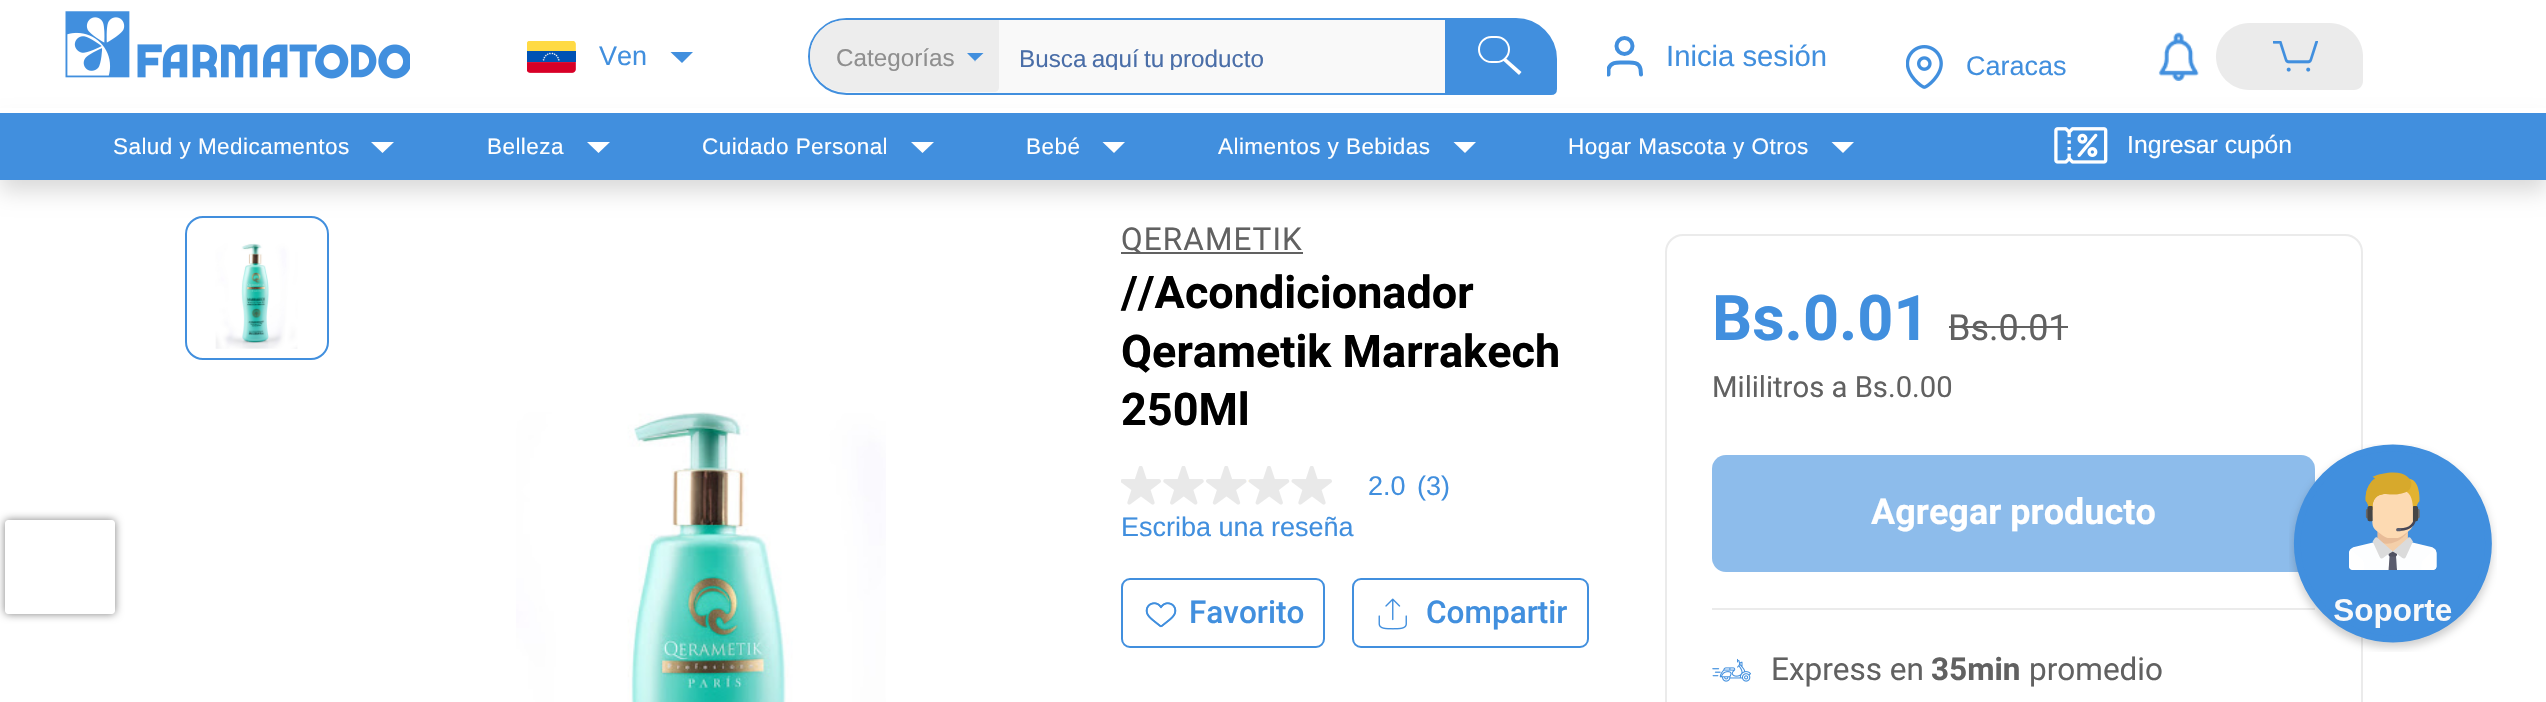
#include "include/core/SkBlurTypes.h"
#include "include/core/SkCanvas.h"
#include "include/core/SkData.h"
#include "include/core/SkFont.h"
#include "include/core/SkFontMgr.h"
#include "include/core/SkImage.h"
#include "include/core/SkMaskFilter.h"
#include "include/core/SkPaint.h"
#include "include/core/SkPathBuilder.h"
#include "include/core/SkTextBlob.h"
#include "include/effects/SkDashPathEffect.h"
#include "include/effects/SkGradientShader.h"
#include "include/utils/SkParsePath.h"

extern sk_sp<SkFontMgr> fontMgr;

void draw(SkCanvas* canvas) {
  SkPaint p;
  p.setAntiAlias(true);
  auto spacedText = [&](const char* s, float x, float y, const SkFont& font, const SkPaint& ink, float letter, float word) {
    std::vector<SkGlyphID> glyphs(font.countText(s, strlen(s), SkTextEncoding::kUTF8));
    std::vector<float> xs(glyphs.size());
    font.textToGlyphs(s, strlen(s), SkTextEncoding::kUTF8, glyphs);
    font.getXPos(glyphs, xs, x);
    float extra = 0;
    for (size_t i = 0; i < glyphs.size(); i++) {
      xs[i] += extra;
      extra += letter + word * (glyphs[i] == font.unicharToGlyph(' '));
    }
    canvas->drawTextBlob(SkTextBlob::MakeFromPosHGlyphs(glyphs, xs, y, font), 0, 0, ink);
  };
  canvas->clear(SK_ColorWHITE);
  canvas->save();
  canvas->clipPath(SkPathBuilder(SkPathFillType::kEvenOdd).moveTo(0, 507).lineTo(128, 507).lineTo(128, 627).lineTo(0, 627).close().moveTo(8, 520).lineTo(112, 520).cubicTo(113.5f, 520, 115, 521.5f, 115, 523).lineTo(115, 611).cubicTo(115, 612.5f, 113.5f, 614, 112, 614).lineTo(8, 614).cubicTo(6.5f, 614, 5, 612.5f, 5, 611).lineTo(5, 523).cubicTo(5, 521.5f, 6.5f, 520, 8, 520).close().detach(), true);
  p.setColor(SkColorSetRGB(128, 128, 128));
  p.setMaskFilter(SkMaskFilter::MakeBlur(kNormal_SkBlurStyle, 4));
  canvas->drawRoundRect(SkRect::MakeLTRB(5, 520, 115, 614), 3, 3, p);
  p.setMaskFilter(nullptr);
  canvas->restore();
  p.setStyle(SkPaint::kStroke_Style);
  p.setStrokeWidth(2);
  p.setColor(SkColorSetRGB(65, 143, 222));
  canvas->drawRoundRect(SkRect::MakeLTRB(186, 217, 328, 359), 17, 17, p);
  p.setStyle(SkPaint::kFill_Style);
  p.setColor(SkColorSetARGB(38, 0, 0, 0));
  p.setMaskFilter(SkMaskFilter::MakeBlur(kNormal_SkBlurStyle, 11));
  canvas->drawRect(SkRect::MakeLTRB(0, 124, 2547, 191), p);
  p.setMaskFilter(nullptr);
  p.setColor(SK_ColorWHITE);
  canvas->drawRect(SkRect::MakeLTRB(0, 108, 2546, 113), p);
  canvas->drawImageRect(SkImages::DeferredFromEncodedData(SkData::MakeFromFileName("images/1.png")), SkRect::MakeLTRB(65, 11, 410, 79), SkSamplingOptions());
  canvas->drawImageRect(SkImages::DeferredFromEncodedData(SkData::MakeFromFileName("images/2.png")), SkRect::MakeLTRB(527, 41, 576, 73), SkSamplingOptions());
  p.setColor(SkColorSetRGB(65, 143, 222));
  canvas->drawPath(SkPathBuilder().moveTo(670.5f, 52).lineTo(693, 52).lineTo(682, 63).close().detach(), p);
  p.setColor(SkColorSetRGB(249, 249, 249));
  canvas->drawRoundRect(SkRect::MakeLTRB(809, 19, 1540, 94), 37.5f, 37.5f, p);
  p.setStyle(SkPaint::kStroke_Style);
  p.setColor(SkColorSetRGB(65, 143, 222));
  canvas->drawRoundRect(SkRect::MakeLTRB(809, 19, 1540, 94), 37.5f, 37.5f, p);
  p.setStyle(SkPaint::kFill_Style);
  p.setColor(SkColorSetRGB(237, 237, 237));
  canvas->drawPath(SkPathBuilder().moveTo(846, 20).lineTo(999, 20).lineTo(999, 87).cubicTo(999, 90, 997, 92, 994, 92).lineTo(846, 92).cubicTo(826, 92, 810, 76, 810, 56).cubicTo(810, 36, 826, 20, 846, 20).close().detach(), p);
  p.setColor(SkColorSetRGB(65, 143, 222));
  canvas->drawPath(SkPathBuilder().moveTo(967, 53).lineTo(983.5f, 53).lineTo(974.5f, 61.5f).lineTo(975.5f, 61.5f).close().detach(), p);
  p.setColor(SkColorSetRGB(249, 249, 249));
  canvas->drawPath(SkPathBuilder().moveTo(1019, 20).lineTo(1516, 20).cubicTo(1538.5f, 20, 1557, 38.5f, 1557, 61).lineTo(1557, 86).cubicTo(1557, 89.5f, 1554.5f, 92, 1551, 92).lineTo(1019, 92).close().detach(), p);
  p.setColor(SkColorSetRGB(65, 143, 222));
  canvas->drawPath(SkPathBuilder().moveTo(1446, 19).lineTo(1516, 19).cubicTo(1538, 19, 1556, 37, 1556, 59).lineTo(1556, 89).cubicTo(1556, 92, 1554, 94, 1551, 94).lineTo(1446, 94).close().detach(), p);
  p.setStyle(SkPaint::kStroke_Style);
  canvas->drawPath(SkPathBuilder().moveTo(1446, 19).lineTo(1516, 19).cubicTo(1538, 19, 1556, 37, 1556, 59).lineTo(1556, 89).cubicTo(1556, 92, 1554, 94, 1551, 94).lineTo(1446, 94).close().detach(), p);
  p.setColor(SK_ColorWHITE);
  canvas->drawRoundRect(SkRect::MakeLTRB(1479, 37, 1509, 62), 12.5f, 12.5f, p);
  p.setStyle(SkPaint::kFill_Style);
  canvas->drawPath(SkPathBuilder().moveTo(1505, 57.5f).lineTo(1521.5f, 72).lineTo(1519, 75).lineTo(1502.5f, 60).close().detach(), p);
  canvas->save();
  canvas->clipRect(SkRect::MakeLTRB(1607, 36, 1643, 77));
  p.setStyle(SkPaint::kStroke_Style);
  p.setStrokeWidth(4);
  p.setStrokeCap(SkPaint::kRound_Cap);
  p.setStrokeJoin(SkPaint::kRound_Join);
  p.setColor(SkColorSetRGB(65, 143, 222));
  canvas->drawPath(SkPathBuilder().moveTo(1641, 74.5f).lineTo(1640.5f, 69).cubicTo(1639, 61, 1630.5f, 62.5f, 1624.5f, 62.5f).cubicTo(1619, 62.5f, 1610.5f, 61, 1608.5f, 69).lineTo(1608.5f, 74.5f).detach(), p);
  canvas->restore();
  p.setStrokeCap(SkPaint::kButt_Cap);
  p.setStrokeJoin(SkPaint::kMiter_Join);
  canvas->drawCircle(1624.5f, 46, 8, p);
  canvas->drawImageRect(SkImages::DeferredFromEncodedData(SkData::MakeFromFileName("images/3.png")), SkRect::MakeLTRB(1906, 45, 1943, 89), SkSamplingOptions());
  canvas->drawImageRect(SkImages::DeferredFromEncodedData(SkData::MakeFromFileName("images/4.png")), SkRect::MakeLTRB(2158, 32, 2199, 81), SkSamplingOptions());
  p.setStyle(SkPaint::kFill_Style);
  p.setColor(SkColorSetRGB(235, 235, 235));
  canvas->drawPath(SkPathBuilder().moveTo(2249.5f, 23).lineTo(2329.5f, 23).cubicTo(2348, 23, 2363, 38, 2363, 56.5f).lineTo(2363, 81).cubicTo(2363, 86, 2359, 90, 2354, 90).lineTo(2249.5f, 90).cubicTo(2231, 90, 2216, 75, 2216, 56.5f).cubicTo(2216, 38, 2231, 23, 2249.5f, 23).close().detach(), p);
  canvas->drawImageRect(SkImages::DeferredFromEncodedData(SkData::MakeFromFileName("images/5.png")), SkRect::MakeLTRB(2273, 41, 2318, 72), SkSamplingOptions());
  p.setColor(SkColorSetRGB(65, 143, 222));
  canvas->drawRect(SkRect::MakeLTRB(0, 113, 2546, 180), p);
  p.setColor(SK_ColorWHITE);
  canvas->drawPath(SkPathBuilder().moveTo(371, 142).lineTo(394, 142).lineTo(382.5f, 153).close().detach(), p);
  canvas->drawPath(SkPathBuilder().moveTo(587, 142).lineTo(610, 142).lineTo(598.5f, 153).close().detach(), p);
  canvas->drawPath(SkPathBuilder().moveTo(911, 142).lineTo(934, 142).lineTo(922.5f, 153).close().detach(), p);
  canvas->drawPath(SkPathBuilder().moveTo(1102.5f, 142).lineTo(1125, 142).lineTo(1114, 153).close().detach(), p);
  canvas->drawPath(SkPathBuilder().moveTo(1453.5f, 142).lineTo(1476, 142).lineTo(1465, 153).close().detach(), p);
  canvas->drawPath(SkPathBuilder().moveTo(1831.5f, 142).lineTo(1854, 142).lineTo(1843, 153).close().detach(), p);
  canvas->drawImageRect(SkImages::DeferredFromEncodedData(SkData::MakeFromFileName("images/6.png")), SkRect::MakeLTRB(2054, 127, 2108, 164), SkSamplingOptions());
  canvas->drawImageRect(SkImages::DeferredFromEncodedData(SkData::MakeFromFileName("images/7.png")), SkRect::MakeLTRB(215, 243, 298, 349), SkSamplingOptions());
  canvas->drawImageRect(SkImages::DeferredFromEncodedData(SkData::MakeFromFileName("images/8.png")), SkRect::MakeLTRB(516, 412, 886, 702), SkSamplingOptions());
  p.setColor(SkColorSetRGB(97, 97, 97));
  canvas->drawRect(SkRect::MakeLTRB(1121, 252, 1303, 254), p);
  canvas->drawImageRect(SkImages::DeferredFromEncodedData(SkData::MakeFromFileName("images/9.png")), SkRect::MakeLTRB(1121, 466, 1161, 505), SkSamplingOptions());
  canvas->drawImageRect(SkImages::DeferredFromEncodedData(SkData::MakeFromFileName("images/10.png")), SkRect::MakeLTRB(1163, 466, 1204, 505), SkSamplingOptions());
  canvas->drawImageRect(SkImages::DeferredFromEncodedData(SkData::MakeFromFileName("images/11.png")), SkRect::MakeLTRB(1206, 466, 1247, 505), SkSamplingOptions());
  canvas->drawImageRect(SkImages::DeferredFromEncodedData(SkData::MakeFromFileName("images/12.png")), SkRect::MakeLTRB(1248, 466, 1290, 505), SkSamplingOptions());
  canvas->drawImageRect(SkImages::DeferredFromEncodedData(SkData::MakeFromFileName("images/13.png")), SkRect::MakeLTRB(1291, 466, 1332, 505), SkSamplingOptions());
  p.setStyle(SkPaint::kStroke_Style);
  p.setStrokeWidth(2);
  p.setColor(SkColorSetRGB(65, 143, 222));
  canvas->drawRoundRect(SkRect::MakeLTRB(1122, 579, 1324, 647), 8, 8, p);
  canvas->drawImageRect(SkImages::DeferredFromEncodedData(SkData::MakeFromFileName("images/14.png")), SkRect::MakeLTRB(1145, 602, 1177, 628), SkSamplingOptions());
  canvas->drawRoundRect(SkRect::MakeLTRB(1353, 579, 1588, 647), 8, 8, p);
  canvas->drawImageRect(SkImages::DeferredFromEncodedData(SkData::MakeFromFileName("images/15.png")), SkRect::MakeLTRB(1378, 598, 1407, 630), SkSamplingOptions());
  p.setColor(SkColorSetRGB(235, 235, 235));
  canvas->drawRoundRect(SkRect::MakeLTRB(1666, 235, 2362, 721), 17, 17, p);
  p.setStyle(SkPaint::kFill_Style);
  p.setColor(SkColorSetRGB(97, 97, 97));
  canvas->drawRect(SkRect::MakeLTRB(1949, 326, 2068, 328), p);
  p.setColor(SkColorSetRGB(141, 188, 235));
  canvas->drawRoundRect(SkRect::MakeLTRB(1712, 455, 2315, 572), 14, 14, p);
  p.setColor(SkColorSetRGB(235, 235, 235));
  canvas->drawRect(SkRect::MakeLTRB(1712, 608, 2315, 610), p);
  canvas->drawImageRect(SkImages::DeferredFromEncodedData(SkData::MakeFromFileName("images/16.png")), SkRect::MakeLTRB(1712, 658, 1751, 682), SkSamplingOptions());
  canvas->drawImageRect(SkImages::DeferredFromEncodedData(SkData::MakeFromFileName("images/17.png")), SkRect::MakeLTRB(2289, 444, 2497, 652), SkSamplingOptions());
  SkFont font1(fontMgr->matchFamilyStyle("Liberation Sans", SkFontStyle::Normal()), 27);
  font1.setSubpixel(true);
  p.setColor(SkColorSetRGB(65, 143, 222));
  canvas->drawString("Ven", 599, 65, font1, p);
  SkFont font2(fontMgr->matchFamilyStyle("Liberation Sans", SkFontStyle::Normal()), 24.25f);
  font2.setSubpixel(true);
  p.setColor(SkColorSetRGB(143, 143, 143));
  canvas->drawString("Categorías", 836, 66, font2, p);
  canvas->save();
  canvas->clipRect(SkRect::MakeLTRB(1019, 45, 1557, 70));
  p.setColor(SkColorSetRGB(74, 110, 168));
  spacedText("Busca aquí tu producto", 1019, 67, font2, p, 0, -1.5f);
  canvas->restore();
  SkFont font3(fontMgr->matchFamilyStyle("Liberation Sans", SkFontStyle::Normal()), 29.25f);
  font3.setSubpixel(true);
  p.setColor(SkColorSetRGB(65, 143, 222));
  canvas->drawString("Inicia sesión", 1666, 66, font3, p);
  canvas->drawString("Caracas", 1966, 75, font1, p);
  SkFont font4(fontMgr->matchFamilyStyle("Liberation Sans", SkFontStyle::Normal()), 22.5f);
  font4.setSubpixel(true);
  p.setColor(SK_ColorWHITE);
  spacedText("Salud y Medicamentos", 113, 154, font4, p, 0.45f, 0);
  spacedText("Belleza", 487, 154, font4, p, 0.45f, 0);
  spacedText("Cuidado Personal", 702, 154, font4, p, 0.45f, 0);
  spacedText("Bebé", 1026, 154, font4, p, 0.45f, 0);
  spacedText("Alimentos y Bebidas", 1218, 154, font4, p, 0.45f, 0);
  spacedText("Hogar Mascota y Otros", 1568, 154, font4, p, 0.45f, 0);
  SkFont font5(fontMgr->matchFamilyStyle("Liberation Sans", SkFontStyle::Normal()), 24.75f);
  font5.setSubpixel(true);
  canvas->drawString("Ingresar cupón", 2127, 153, font5, p);
  SkFont font6(fontMgr->matchFamilyStyle("Roboto", SkFontStyle::Normal()), 31.5f);
  font6.setSubpixel(true);
  p.setColor(SkColorSetRGB(97, 97, 97));
  spacedText("QERAMETIK", 1121, 250, font6, p, 1.1f, 0);
  SkFont font7(fontMgr->matchFamilyStyle("Roboto", SkFontStyle::Bold()), 45);
  font7.setSubpixel(true);
  p.setColor(SK_ColorBLACK);
  canvas->drawString("//Acondicionador", 1121, 308, font7, p);
  canvas->drawString("Qerametik Marrakech", 1121, 367, font7, p);
  canvas->drawString("250Ml", 1121, 425, font7, p);
  p.setColor(SkColorSetRGB(65, 143, 222));
  canvas->drawString("2.0", 1368, 495, font1, p);
  canvas->drawString("(3)", 1417, 495, font1, p);
  canvas->drawString("Escriba una reseña", 1121, 536, font1, p);
  SkFont font8(fontMgr->matchFamilyStyle("Roboto", SkFontStyle(500, SkFontStyle::kNormal_Width, SkFontStyle::kUpright_Slant)), 31.5f);
  font8.setSubpixel(true);
  canvas->drawString("Favorito", 1189, 623, font8, p);
  canvas->drawString("Compartir", 1426, 623, font8, p);
  SkFont font9(fontMgr->matchFamilyStyle("Roboto", SkFontStyle::Bold()), 63);
  font9.setSubpixel(true);
  canvas->drawString("Bs.0.01", 1712, 340, font9, p);
  SkFont font10(fontMgr->matchFamilyStyle("Roboto", SkFontStyle::Normal()), 36);
  font10.setSubpixel(true);
  p.setColor(SkColorSetRGB(97, 97, 97));
  canvas->drawString("Bs.0.01", 1948, 340, font10, p);
  SkFont font11(fontMgr->matchFamilyStyle("Roboto", SkFontStyle::Normal()), 29.25f);
  font11.setSubpixel(true);
  canvas->drawString("Mililitros a Bs.0.00", 1712, 397, font11, p);
  SkFont font12(fontMgr->matchFamilyStyle("Roboto", SkFontStyle::Bold()), 36);
  font12.setSubpixel(true);
  p.setColor(SK_ColorWHITE);
  canvas->drawString("Agregar producto", 1871, 524, font12, p);
  p.setColor(SkColorSetRGB(97, 97, 97));
  canvas->drawString("Express en", 1771, 680, font6, p);
  SkFont font13(fontMgr->matchFamilyStyle("Roboto", SkFontStyle::Bold()), 31.5f);
  font13.setSubpixel(true);
  canvas->drawString("35min", 1931, 680, font13, p);
  canvas->drawString("promedio", 2029, 680, font6, p);
}
